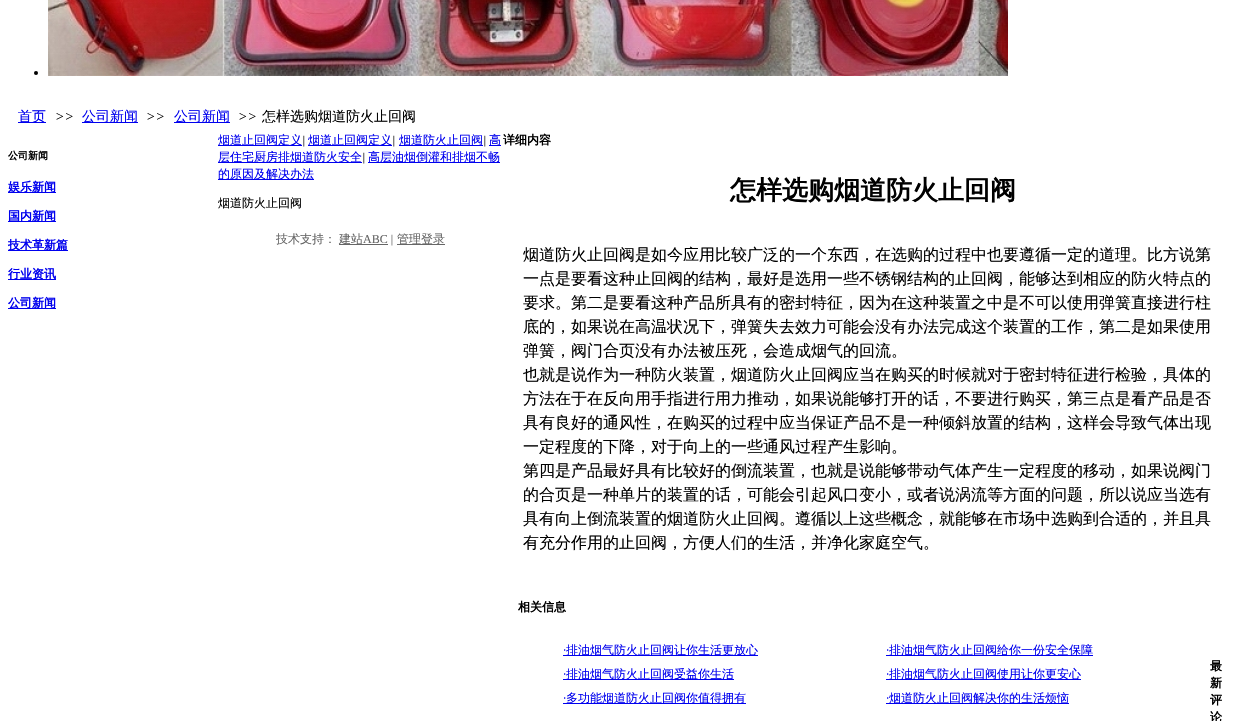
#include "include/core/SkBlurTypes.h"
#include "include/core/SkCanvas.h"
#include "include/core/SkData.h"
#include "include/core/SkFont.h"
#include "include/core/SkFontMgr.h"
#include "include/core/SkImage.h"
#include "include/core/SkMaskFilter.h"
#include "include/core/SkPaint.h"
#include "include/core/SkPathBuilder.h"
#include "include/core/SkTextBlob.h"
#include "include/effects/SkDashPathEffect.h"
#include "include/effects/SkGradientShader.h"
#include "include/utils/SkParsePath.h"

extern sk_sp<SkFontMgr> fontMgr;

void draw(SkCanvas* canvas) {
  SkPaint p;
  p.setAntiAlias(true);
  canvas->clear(SK_ColorWHITE);
  p.setColor(SK_ColorBLACK);
  canvas->drawCircle(36, 73, 2, p);
  canvas->drawImageRect(SkImages::DeferredFromEncodedData(SkData::MakeFromFileName("images/1.png")), SkRect::MakeLTRB(48, 0, 1008, 76), SkSamplingOptions());
  p.setColor(SkColorSetRGB(0, 0, 238));
  canvas->drawRect(SkRect::MakeLTRB(18, 122, 46, 123), p);
  canvas->drawRect(SkRect::MakeLTRB(82, 122, 138, 123), p);
  canvas->drawRect(SkRect::MakeLTRB(174, 122, 230, 123), p);
  canvas->drawRect(SkRect::MakeLTRB(8, 192, 56, 193), p);
  canvas->drawRect(SkRect::MakeLTRB(8, 221, 56, 222), p);
  canvas->drawRect(SkRect::MakeLTRB(8, 250, 68, 251), p);
  canvas->drawRect(SkRect::MakeLTRB(8, 279, 56, 280), p);
  canvas->drawRect(SkRect::MakeLTRB(8, 308, 56, 309), p);
  canvas->drawRect(SkRect::MakeLTRB(563, 655, 758, 656), p);
  canvas->drawRect(SkRect::MakeLTRB(886, 655, 1093, 656), p);
  canvas->drawRect(SkRect::MakeLTRB(563, 679, 734, 680), p);
  canvas->drawRect(SkRect::MakeLTRB(886, 679, 1081, 680), p);
  canvas->drawRect(SkRect::MakeLTRB(563, 703, 746, 704), p);
  canvas->drawRect(SkRect::MakeLTRB(886, 703, 1069, 704), p);
  canvas->drawRect(SkRect::MakeLTRB(218, 145, 302, 146), p);
  canvas->drawRect(SkRect::MakeLTRB(308, 145, 392, 146), p);
  canvas->drawRect(SkRect::MakeLTRB(399, 145, 483, 146), p);
  canvas->drawRect(SkRect::MakeLTRB(489, 145, 501, 146), p);
  canvas->drawRect(SkRect::MakeLTRB(218, 162, 362, 163), p);
  canvas->drawRect(SkRect::MakeLTRB(368, 162, 500, 163), p);
  canvas->drawRect(SkRect::MakeLTRB(218, 179, 314, 180), p);
  p.setColor(SkColorSetRGB(102, 102, 102));
  canvas->drawRect(SkRect::MakeLTRB(339, 244, 388, 245), p);
  canvas->drawRect(SkRect::MakeLTRB(397, 244, 445, 245), p);
  SkFont font1(fontMgr->matchFamilyStyle("WenQuanYi Zen Hei", SkFontStyle(500, SkFontStyle::kNormal_Width, SkFontStyle::kUpright_Slant)), 14);
  font1.setSubpixel(true);
  p.setColor(SkColorSetRGB(0, 0, 238));
  canvas->drawString("首页", 18, 121, font1, p);
  SkFont font2(fontMgr->matchFamilyStyle("Liberation Serif", SkFontStyle::Italic()), 14);
  font2.setSubpixel(true);
  p.setColor(SK_ColorBLACK);
  canvas->drawString(">>", 55, 121, font2, p);
  p.setColor(SkColorSetRGB(0, 0, 238));
  canvas->drawString("公司新闻", 82, 121, font1, p);
  p.setColor(SK_ColorBLACK);
  canvas->drawString(">>", 146, 121, font2, p);
  p.setColor(SkColorSetRGB(0, 0, 238));
  canvas->drawString("公司新闻", 174, 121, font1, p);
  p.setColor(SK_ColorBLACK);
  canvas->drawString(">>", 238, 121, font2, p);
  canvas->drawString("怎样选购烟道防火止回阀", 262, 121, font1, p);
  SkFont font3(fontMgr->matchFamilyStyle("WenQuanYi Zen Hei", SkFontStyle::Bold()), 10);
  font3.setSubpixel(true);
  canvas->drawString("公司新闻", 8, 159, font3, p);
  SkFont font4(fontMgr->matchFamilyStyle("WenQuanYi Zen Hei", SkFontStyle::Bold()), 12);
  font4.setSubpixel(true);
  p.setColor(SkColorSetRGB(0, 0, 238));
  canvas->drawString("娱乐新闻", 8, 191, font4, p);
  canvas->drawString("国内新闻", 8, 220, font4, p);
  canvas->drawString("技术革新篇", 8, 249, font4, p);
  canvas->drawString("行业资讯", 8, 278, font4, p);
  canvas->drawString("公司新闻", 8, 307, font4, p);
  p.setColor(SK_ColorBLACK);
  canvas->drawString("详细内容", 503, 144, font4, p);
  SkFont font5(fontMgr->matchFamilyStyle("WenQuanYi Zen Hei", SkFontStyle::Bold()), 26);
  font5.setSubpixel(true);
  canvas->drawString("怎样选购烟道防火止回阀", 730, 199, font5, p);
  SkFont font6(fontMgr->matchFamilyStyle("WenQuanYi Zen Hei", SkFontStyle(500, SkFontStyle::kNormal_Width, SkFontStyle::kUpright_Slant)), 16);
  font6.setSubpixel(true);
  canvas->drawString("烟道防火止回阀是如今应用比较广泛的一个东西，在选购的过程中也要遵循一定的道理。比方说第", 523, 260, font6, p);
  canvas->drawString("一点是要看这种止回阀的结构，最好是选用一些不锈钢结构的止回阀，能够达到相应的防火特点的", 523, 284, font6, p);
  canvas->drawString("要求。第二是要看这种产品所具有的密封特征，因为在这种装置之中是不可以使用弹簧直接进行柱", 523, 308, font6, p);
  canvas->drawString("底的，如果说在高温状况下，弹簧失去效力可能会没有办法完成这个装置的工作，第二是如果使用", 523, 332, font6, p);
  canvas->drawString("弹簧，阀门合页没有办法被压死，会造成烟气的回流。", 523, 356, font6, p);
  canvas->drawString("也就是说作为一种防火装置，烟道防火止回阀应当在购买的时候就对于密封特征进行检验，具体的", 523, 380, font6, p);
  canvas->drawString("方法在于在反向用手指进行用力推动，如果说能够打开的话，不要进行购买，第三点是看产品是否", 523, 404, font6, p);
  canvas->drawString("具有良好的通风性，在购买的过程中应当保证产品不是一种倾斜放置的结构，这样会导致气体出现", 523, 428, font6, p);
  canvas->drawString("一定程度的下降，对于向上的一些通风过程产生影响。", 523, 452, font6, p);
  canvas->drawString("第四是产品最好具有比较好的倒流装置，也就是说能够带动气体产生一定程度的移动，如果说阀门", 523, 476, font6, p);
  canvas->drawString("的合页是一种单片的装置的话，可能会引起风口变小，或者说涡流等方面的问题，所以说应当选有", 523, 500, font6, p);
  canvas->drawString("具有向上倒流装置的烟道防火止回阀。遵循以上这些概念，就能够在市场中选购到合适的，并且具", 523, 524, font6, p);
  canvas->drawString("有充分作用的止回阀，方便人们的生活，并净化家庭空气。", 523, 548, font6, p);
  canvas->drawString("相关信息", 518, 611, font4, p);
  SkFont font7(fontMgr->matchFamilyStyle("Liberation Serif", SkFontStyle::Italic()), 12);
  font7.setSubpixel(true);
  p.setColor(SkColorSetRGB(0, 0, 238));
  canvas->drawString("·", 563, 654, font7, p);
  SkFont font8(fontMgr->matchFamilyStyle("WenQuanYi Zen Hei", SkFontStyle(500, SkFontStyle::kNormal_Width, SkFontStyle::kUpright_Slant)), 12);
  font8.setSubpixel(true);
  canvas->drawString("排油烟气防火止回阀让你生活更放心", 566, 654, font8, p);
  canvas->drawString("·", 886, 654, font7, p);
  canvas->drawString("排油烟气防火止回阀给你一份安全保障", 889, 654, font8, p);
  canvas->drawString("·", 563, 678, font7, p);
  canvas->drawString("排油烟气防火止回阀受益你生活", 566, 678, font8, p);
  canvas->drawString("·", 886, 678, font7, p);
  canvas->drawString("排油烟气防火止回阀使用让你更安心", 889, 678, font8, p);
  canvas->drawString("·", 563, 702, font7, p);
  canvas->drawString("多功能烟道防火止回阀你值得拥有", 566, 702, font8, p);
  canvas->drawString("·", 886, 702, font7, p);
  canvas->drawString("烟道防火止回阀解决你的生活烦恼", 889, 702, font8, p);
  p.setColor(SK_ColorBLACK);
  canvas->drawString("最", 1210, 670, font4, p);
  canvas->drawString("新", 1210, 687, font4, p);
  canvas->drawString("评", 1210, 704, font4, p);
  canvas->drawString("论", 1210, 721, font4, p);
  p.setColor(SkColorSetRGB(0, 0, 238));
  canvas->drawString("烟道止回阀定义", 218, 144, font8, p);
  p.setColor(SK_ColorBLACK);
  canvas->drawString("|", 302, 144, font7, p);
  p.setColor(SkColorSetRGB(0, 0, 238));
  canvas->drawString("烟道止回阀定义", 308, 144, font8, p);
  p.setColor(SK_ColorBLACK);
  canvas->drawString("|", 392, 144, font7, p);
  p.setColor(SkColorSetRGB(0, 0, 238));
  canvas->drawString("烟道防火止回阀", 399, 144, font8, p);
  p.setColor(SK_ColorBLACK);
  canvas->drawString("|", 483, 144, font7, p);
  p.setColor(SkColorSetRGB(0, 0, 238));
  canvas->drawString("高", 489, 144, font8, p);
  canvas->drawString("层住宅厨房排烟道防火安全", 218, 161, font8, p);
  p.setColor(SK_ColorBLACK);
  canvas->drawString("|", 362, 161, font7, p);
  p.setColor(SkColorSetRGB(0, 0, 238));
  canvas->drawString("高层油烟倒灌和排烟不畅", 368, 161, font8, p);
  canvas->drawString("的原因及解决办法", 218, 178, font8, p);
  p.setColor(SK_ColorBLACK);
  canvas->drawString("烟道防火止回阀", 218, 207, font8, p);
  p.setColor(SkColorSetRGB(102, 102, 102));
  canvas->drawString("技术支持：", 276, 243, font8, p);
  canvas->drawString("建站", 339, 243, font8, p);
  SkFont font9(fontMgr->matchFamilyStyle("Liberation Serif", SkFontStyle::Normal()), 12);
  font9.setSubpixel(true);
  canvas->drawString("ABC |", 363, 243, font9, p);
  canvas->drawString("管理登录", 397, 243, font8, p);
}
